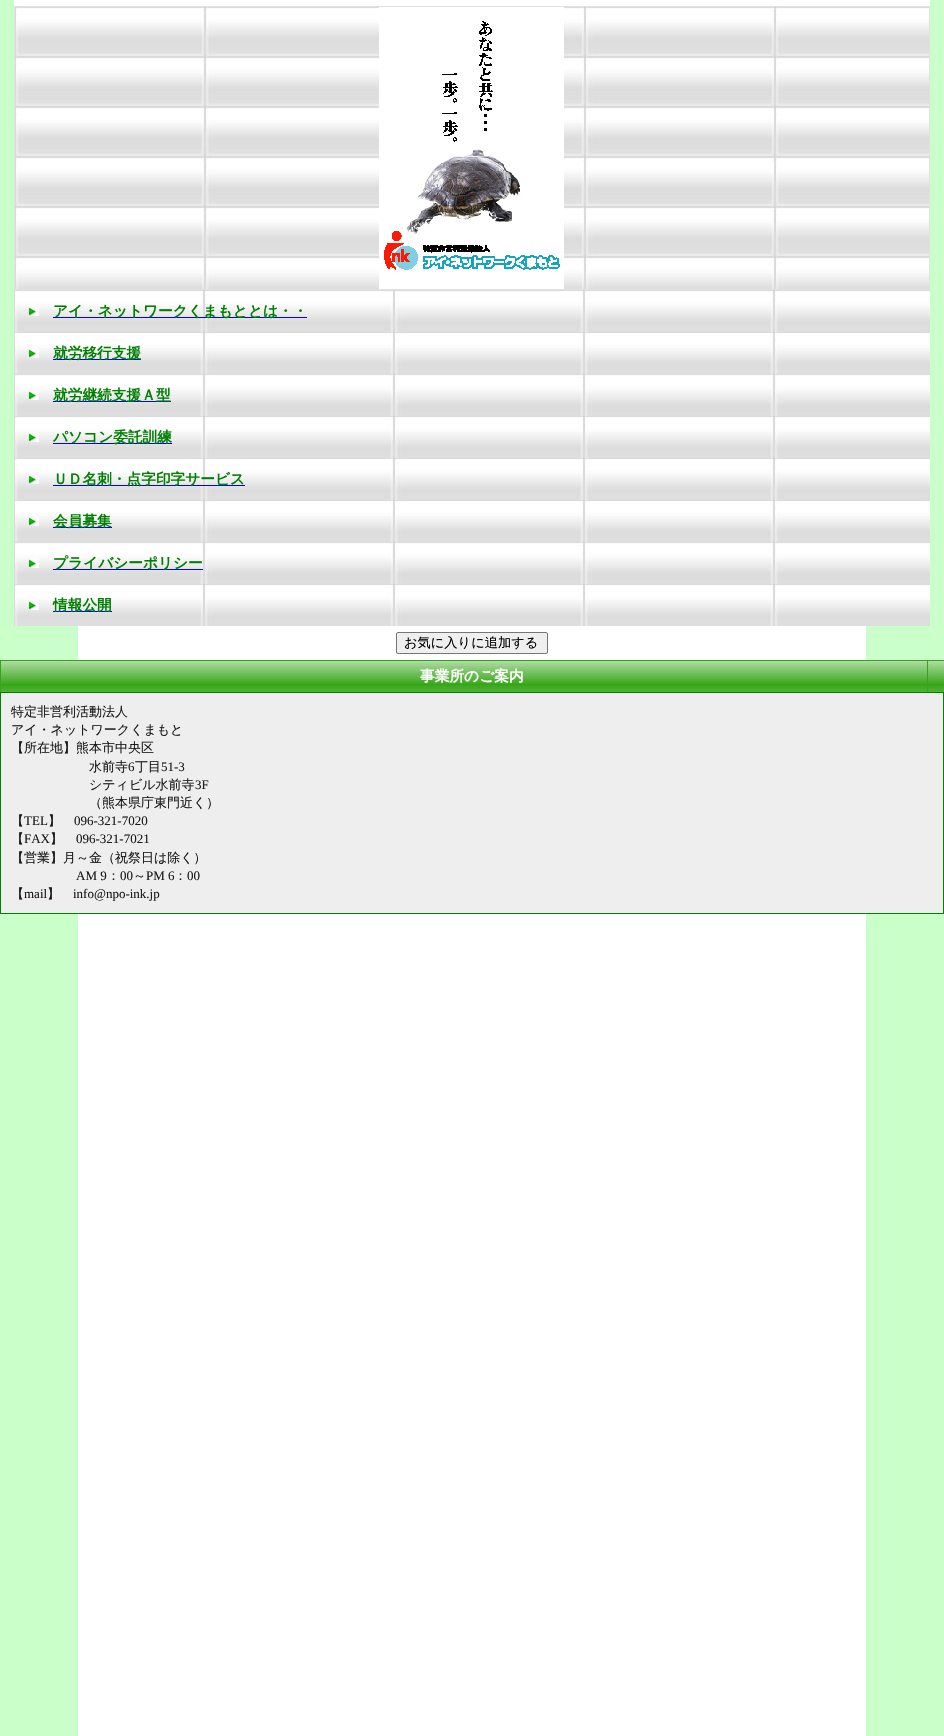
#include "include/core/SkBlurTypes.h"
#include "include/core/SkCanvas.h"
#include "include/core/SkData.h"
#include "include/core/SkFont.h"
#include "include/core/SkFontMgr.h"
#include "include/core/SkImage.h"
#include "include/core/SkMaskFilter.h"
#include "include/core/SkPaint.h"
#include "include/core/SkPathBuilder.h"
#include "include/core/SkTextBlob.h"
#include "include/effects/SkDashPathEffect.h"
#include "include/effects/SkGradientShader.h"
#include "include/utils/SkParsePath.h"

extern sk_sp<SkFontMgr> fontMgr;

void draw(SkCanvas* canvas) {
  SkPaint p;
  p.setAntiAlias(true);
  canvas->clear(SK_ColorWHITE);
  canvas->drawImageRect(SkImages::DeferredFromEncodedData(SkData::MakeFromFileName("images/1.png")), SkRect::MakeLTRB(0, 0, 944, 1736), SkSamplingOptions());
  p.setColor(SK_ColorWHITE);
  canvas->drawRect(SkRect::MakeLTRB(14, 0, 930, 6), p);
  p.setStyle(SkPaint::kStroke_Style);
  p.setStrokeWidth(1);
  p.setColor(SkColorSetRGB(225, 225, 225));
  canvas->drawRect(SkRect::MakeLTRB(14.5f, 6.5f, 929.5f, 289.5f), p);
  canvas->drawImageRect(SkImages::DeferredFromEncodedData(SkData::MakeFromFileName("images/2.png")), SkRect::MakeLTRB(15, 7, 929, 289), SkSamplingOptions());
  canvas->drawImageRect(SkImages::DeferredFromEncodedData(SkData::MakeFromFileName("images/3.png")), SkRect::MakeLTRB(379, 7, 564, 289), SkSamplingOptions());
  canvas->drawImageRect(SkImages::DeferredFromEncodedData(SkData::MakeFromFileName("images/4.png")), SkRect::MakeLTRB(14, 290, 930, 332), SkSamplingOptions());
  canvas->drawImageRect(SkImages::DeferredFromEncodedData(SkData::MakeFromFileName("images/5.png")), SkRect::MakeLTRB(29, 306, 39, 316), SkSamplingOptions());
  p.setStyle(SkPaint::kFill_Style);
  p.setColor(SkColorSetRGB(0, 0, 255));
  canvas->drawRect(SkRect::MakeLTRB(53, 317, 307, 318), p);
  canvas->drawImageRect(SkImages::DeferredFromEncodedData(SkData::MakeFromFileName("images/4.png")), SkRect::MakeLTRB(14, 332, 930, 374), SkSamplingOptions());
  canvas->drawImageRect(SkImages::DeferredFromEncodedData(SkData::MakeFromFileName("images/5.png")), SkRect::MakeLTRB(29, 348, 39, 358), SkSamplingOptions());
  canvas->drawRect(SkRect::MakeLTRB(53, 359, 141, 360), p);
  canvas->drawImageRect(SkImages::DeferredFromEncodedData(SkData::MakeFromFileName("images/4.png")), SkRect::MakeLTRB(14, 374, 930, 416), SkSamplingOptions());
  canvas->drawImageRect(SkImages::DeferredFromEncodedData(SkData::MakeFromFileName("images/5.png")), SkRect::MakeLTRB(29, 390, 39, 400), SkSamplingOptions());
  canvas->drawRect(SkRect::MakeLTRB(53, 401, 171, 402), p);
  canvas->drawImageRect(SkImages::DeferredFromEncodedData(SkData::MakeFromFileName("images/4.png")), SkRect::MakeLTRB(14, 416, 930, 458), SkSamplingOptions());
  canvas->drawImageRect(SkImages::DeferredFromEncodedData(SkData::MakeFromFileName("images/5.png")), SkRect::MakeLTRB(29, 432, 39, 442), SkSamplingOptions());
  canvas->drawRect(SkRect::MakeLTRB(53, 443, 172, 444), p);
  canvas->drawImageRect(SkImages::DeferredFromEncodedData(SkData::MakeFromFileName("images/4.png")), SkRect::MakeLTRB(14, 458, 930, 500), SkSamplingOptions());
  canvas->drawImageRect(SkImages::DeferredFromEncodedData(SkData::MakeFromFileName("images/5.png")), SkRect::MakeLTRB(29, 474, 39, 484), SkSamplingOptions());
  canvas->drawRect(SkRect::MakeLTRB(53, 485, 245, 486), p);
  canvas->drawImageRect(SkImages::DeferredFromEncodedData(SkData::MakeFromFileName("images/4.png")), SkRect::MakeLTRB(14, 500, 930, 542), SkSamplingOptions());
  canvas->drawImageRect(SkImages::DeferredFromEncodedData(SkData::MakeFromFileName("images/5.png")), SkRect::MakeLTRB(29, 516, 39, 526), SkSamplingOptions());
  canvas->drawRect(SkRect::MakeLTRB(53, 527, 112, 528), p);
  canvas->drawImageRect(SkImages::DeferredFromEncodedData(SkData::MakeFromFileName("images/4.png")), SkRect::MakeLTRB(14, 542, 930, 584), SkSamplingOptions());
  canvas->drawImageRect(SkImages::DeferredFromEncodedData(SkData::MakeFromFileName("images/5.png")), SkRect::MakeLTRB(29, 558, 39, 568), SkSamplingOptions());
  canvas->drawRect(SkRect::MakeLTRB(53, 569, 203, 570), p);
  canvas->drawImageRect(SkImages::DeferredFromEncodedData(SkData::MakeFromFileName("images/4.png")), SkRect::MakeLTRB(14, 584, 930, 626), SkSamplingOptions());
  canvas->drawImageRect(SkImages::DeferredFromEncodedData(SkData::MakeFromFileName("images/5.png")), SkRect::MakeLTRB(29, 600, 39, 610), SkSamplingOptions());
  canvas->drawRect(SkRect::MakeLTRB(53, 611, 112, 612), p);
  p.setColor(SkColorSetRGB(239, 239, 239));
  canvas->drawRoundRect(SkRect::MakeLTRB(396.5f, 632.5f, 547.5f, 653.5f), 1.5f, 1.5f, p);
  p.setStyle(SkPaint::kStroke_Style);
  p.setColor(SkColorSetRGB(118, 118, 118));
  canvas->drawRoundRect(SkRect::MakeLTRB(396.5f, 632.5f, 547.5f, 653.5f), 1.5f, 1.5f, p);
  canvas->drawImageRect(SkImages::DeferredFromEncodedData(SkData::MakeFromFileName("images/6.png")), SkRect::MakeLTRB(0, 660, 944, 692), SkSamplingOptions());
  p.setStyle(SkPaint::kFill_Style);
  p.setColor(SkColorSetRGB(238, 238, 238));
  canvas->drawRect(SkRect::MakeLTRB(0.5f, 692.5f, 943.5f, 913.5f), p);
  p.setStyle(SkPaint::kStroke_Style);
  p.setColor(SkColorSetRGB(0, 128, 0));
  canvas->drawRect(SkRect::MakeLTRB(0.5f, 692.5f, 943.5f, 913.5f), p);
  SkFont font1(fontMgr->matchFamilyStyle("WenQuanYi Zen Hei", SkFontStyle::Bold()), 14.7f);
  font1.setSubpixel(true);
  p.setStyle(SkPaint::kFill_Style);
  canvas->drawString("アイ・ネットワークくまもととは・・", 53, 316, font1, p);
  canvas->drawString("就労移行支援", 53, 358, font1, p);
  canvas->drawString("就労継続支援Ａ型", 53, 400, font1, p);
  canvas->drawString("パソコン委託訓練", 53, 442, font1, p);
  canvas->drawString("ＵＤ名刺・点字印字サービス", 53, 484, font1, p);
  canvas->drawString("会員募集", 53, 526, font1, p);
  canvas->drawString("プライバシーポリシー", 53, 568, font1, p);
  canvas->drawString("情報公開", 53, 610, font1, p);
  SkFont font2(fontMgr->matchFamilyStyle("WenQuanYi Zen Hei", SkFontStyle(500, SkFontStyle::kNormal_Width, SkFontStyle::kUpright_Slant)), 13.25f);
  font2.setSubpixel(true);
  p.setColor(SK_ColorBLACK);
  canvas->drawString("お気に入りに追加する", 404, 647, font2, p);
  p.setColor(SK_ColorWHITE);
  canvas->drawString("事業所のご案内", 420, 681, font1, p);
  SkFont font3(fontMgr->matchFamilyStyle("WenQuanYi Zen Hei", SkFontStyle(500, SkFontStyle::kNormal_Width, SkFontStyle::kUpright_Slant)), 13);
  font3.setSubpixel(true);
  p.setColor(SkColorSetRGB(26, 26, 26));
  canvas->drawString("特定非営利活動法人", 11, 716, font3, p);
  canvas->drawString("アイ・ネットワークくまもと", 11, 734, font3, p);
  canvas->drawString("【所在地】熊本市中央区", 11, 752, font3, p);
  canvas->drawString("水前寺", 89, 771, font3, p);
  SkFont font4(fontMgr->matchFamilyStyle("Liberation Serif", SkFontStyle::Normal()), 13);
  font4.setSubpixel(true);
  canvas->drawString("6", 128, 771, font4, p);
  canvas->drawString("丁目", 135, 771, font3, p);
  canvas->drawString("51-3", 161, 771, font4, p);
  canvas->drawString("シティビル水前寺", 89, 789, font3, p);
  canvas->drawString("3F", 195, 789, font4, p);
  canvas->drawString("（熊本県庁東門近く）", 89, 807, font3, p);
  canvas->drawString("【", 11, 825, font3, p);
  canvas->drawString("TEL", 24, 825, font4, p);
  canvas->drawString("】", 48, 825, font3, p);
  canvas->drawString("096-321-7020", 74, 825, font4, p);
  canvas->drawString("【", 11, 843, font3, p);
  canvas->drawString("FAX", 24, 843, font4, p);
  canvas->drawString("】", 50, 843, font3, p);
  canvas->drawString("096-321-7021", 76, 843, font4, p);
  canvas->drawString("【営業】月～金（祝祭日は除く）", 11, 862, font3, p);
  canvas->drawString("AM 9", 76, 880, font4, p);
  canvas->drawString("：", 107, 880, font3, p);
  canvas->drawString("00", 120, 880, font4, p);
  canvas->drawString("～", 133, 880, font3, p);
  canvas->drawString("PM 6", 146, 880, font4, p);
  canvas->drawString("：", 174, 880, font3, p);
  canvas->drawString("00", 187, 880, font4, p);
  canvas->drawString("【", 11, 898, font3, p);
  canvas->drawString("mail", 24, 898, font4, p);
  canvas->drawString("】", 47, 898, font3, p);
  canvas->drawString("info@npo-ink.jp", 73, 898, font4, p);
}
